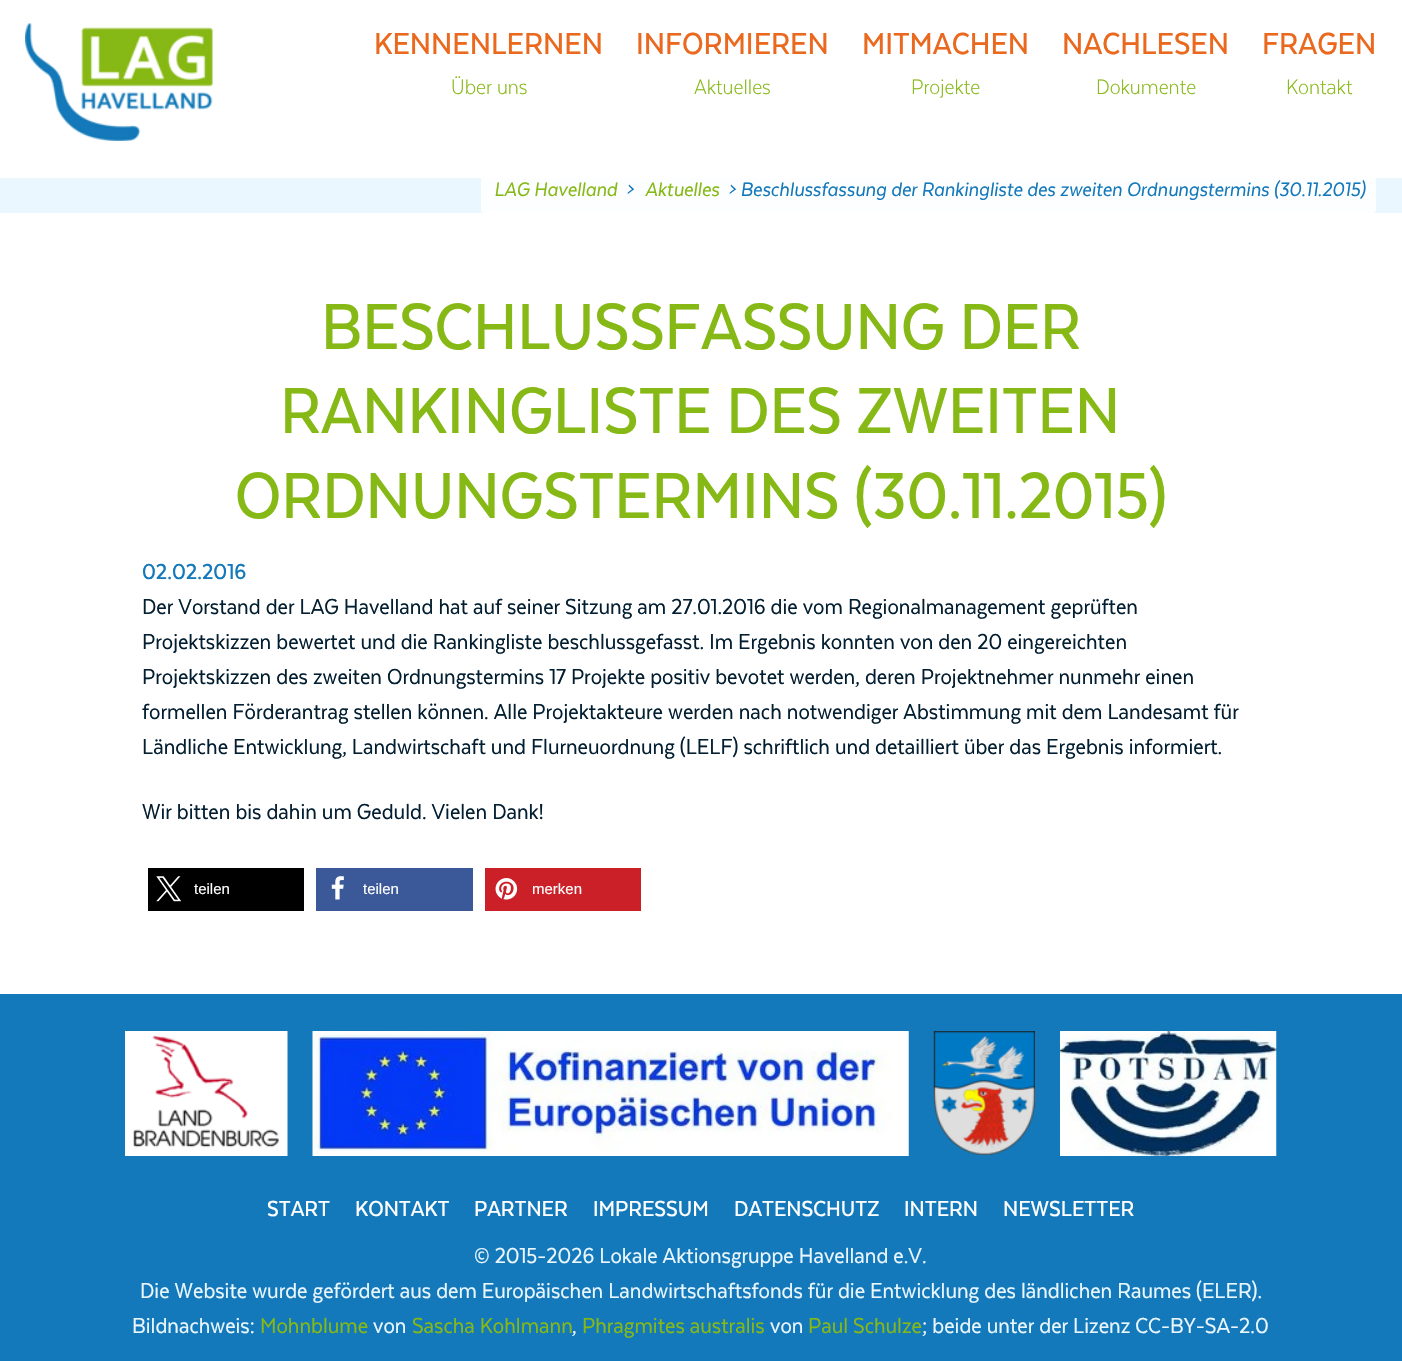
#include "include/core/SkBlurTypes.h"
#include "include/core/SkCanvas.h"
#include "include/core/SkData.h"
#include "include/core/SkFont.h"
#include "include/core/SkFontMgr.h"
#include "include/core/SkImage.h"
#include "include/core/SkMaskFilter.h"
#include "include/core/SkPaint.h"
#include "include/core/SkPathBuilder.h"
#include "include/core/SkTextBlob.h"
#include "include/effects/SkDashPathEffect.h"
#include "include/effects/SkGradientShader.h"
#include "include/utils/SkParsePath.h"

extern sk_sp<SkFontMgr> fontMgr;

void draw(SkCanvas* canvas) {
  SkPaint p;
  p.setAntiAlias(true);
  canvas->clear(SK_ColorWHITE);
  canvas->drawImageRect(SkImages::DeferredFromEncodedData(SkData::MakeFromFileName("images/1.png")), SkRect::MakeLTRB(25, 23, 213, 141), SkSamplingOptions());
  p.setColor(SkColorSetRGB(234, 247, 255));
  canvas->drawRect(SkRect::MakeLTRB(0, 178, 1402, 213), p);
  p.setColor(SkColorSetRGB(253, 254, 255));
  canvas->drawPath(SkPathBuilder().moveTo(481, 178).lineTo(1376, 178).lineTo(1376, 210.5f).cubicTo(1376, 212, 1375, 213, 1373.5f, 213).lineTo(483.5f, 213).cubicTo(482, 213, 481, 212, 481, 210.5f).close().detach(), p);
  p.setColor(SK_ColorBLACK);
  canvas->drawRect(SkRect::MakeLTRB(148, 868, 304, 911), p);
  canvas->drawImageRect(SkImages::DeferredFromEncodedData(SkData::MakeFromFileName("images/2.png")), SkRect::MakeLTRB(156, 876, 182, 902), SkSamplingOptions());
  p.setColor(SkColorSetRGB(59, 89, 152));
  canvas->drawRect(SkRect::MakeLTRB(316, 868, 473, 911), p);
  canvas->drawImageRect(SkImages::DeferredFromEncodedData(SkData::MakeFromFileName("images/3.png")), SkRect::MakeLTRB(331, 876, 344, 900), SkSamplingOptions());
  p.setColor(SkColorSetRGB(203, 32, 39));
  canvas->drawRect(SkRect::MakeLTRB(485, 868, 641, 911), p);
  canvas->drawImageRect(SkImages::DeferredFromEncodedData(SkData::MakeFromFileName("images/4.png")), SkRect::MakeLTRB(495, 878, 518, 900), SkSamplingOptions());
  p.setColor(SkColorSetRGB(20, 121, 186));
  canvas->drawRect(SkRect::MakeLTRB(0, 994, 1402, 1361), p);
  canvas->drawImageRect(SkImages::DeferredFromEncodedData(SkData::MakeFromFileName("images/5.png")), SkRect::MakeLTRB(125, 1031, 288, 1156), SkSamplingOptions());
  canvas->drawImageRect(SkImages::DeferredFromEncodedData(SkData::MakeFromFileName("images/6.png")), SkRect::MakeLTRB(312, 1031, 909, 1156), SkSamplingOptions());
  canvas->drawImageRect(SkImages::DeferredFromEncodedData(SkData::MakeFromFileName("images/7.png")), SkRect::MakeLTRB(933, 1031, 1035, 1155), SkSamplingOptions());
  canvas->drawImageRect(SkImages::DeferredFromEncodedData(SkData::MakeFromFileName("images/8.png")), SkRect::MakeLTRB(1060, 1031, 1277, 1156), SkSamplingOptions());
  SkFont font1(fontMgr->matchFamilyStyle("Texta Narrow", SkFontStyle::Normal()), 35);
  font1.setSubpixel(true);
  p.setColor(SkColorSetRGB(234, 105, 30));
  canvas->drawString("KENNENLERNEN", 374, 54, font1, p);
  SkFont font2(fontMgr->matchFamilyStyle("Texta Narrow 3", SkFontStyle::Normal()), 24);
  font2.setSubpixel(true);
  p.setColor(SkColorSetRGB(134, 185, 21));
  canvas->drawString("Über uns", 451, 94, font2, p);
  p.setColor(SkColorSetRGB(234, 105, 30));
  canvas->drawString("INFORMIEREN", 636, 54, font1, p);
  p.setColor(SkColorSetRGB(134, 185, 21));
  canvas->drawString("Aktuelles", 694, 94, font2, p);
  p.setColor(SkColorSetRGB(234, 105, 30));
  canvas->drawString("MITMACHEN", 862, 54, font1, p);
  p.setColor(SkColorSetRGB(134, 185, 21));
  canvas->drawString("Projekte", 911, 94, font2, p);
  p.setColor(SkColorSetRGB(234, 105, 30));
  canvas->drawString("NACHLESEN", 1062, 54, font1, p);
  p.setColor(SkColorSetRGB(134, 185, 21));
  canvas->drawString("Dokumente", 1096, 94, font2, p);
  p.setColor(SkColorSetRGB(234, 105, 30));
  canvas->drawString("FRAGEN", 1262, 54, font1, p);
  p.setColor(SkColorSetRGB(134, 185, 21));
  canvas->drawString("Kontakt", 1286, 94, font2, p);
  SkFont font3(fontMgr->matchFamilyStyle("Texta Narrow", SkFontStyle::Italic()), 22.5f);
  font3.setSubpixel(true);
  canvas->drawString("LAG Havelland", 494, 196, font3, p);
  p.setColor(SkColorSetRGB(20, 121, 186));
  canvas->drawString(">", 626, 196, font3, p);
  p.setColor(SkColorSetRGB(134, 185, 21));
  canvas->drawString("Aktuelles", 645, 196, font3, p);
  p.setColor(SkColorSetRGB(20, 121, 186));
  canvas->drawString("> Beschlussfassung der Rankingliste des zweiten Ordnungstermins (30.11.2015)", 728, 196, font3, p);
  SkFont font4(fontMgr->matchFamilyStyle("Texta Narrow", SkFontStyle::Normal()), 75);
  font4.setSubpixel(true);
  p.setColor(SkColorSetRGB(134, 185, 21));
  canvas->drawString("BESCHLUSSFASSUNG DER", 321, 349, font4, p);
  canvas->drawString("RANKINGLISTE DES ZWEITEN", 280, 433, font4, p);
  canvas->drawString("ORDNUNGSTERMINS (30.11.2015)", 235, 518, font4, p);
  SkFont font5(fontMgr->matchFamilyStyle("Texta Narrow", SkFontStyle::Normal()), 25);
  font5.setSubpixel(true);
  p.setColor(SkColorSetRGB(20, 121, 186));
  canvas->drawString("02.02.2016", 142, 579, font5, p);
  SkFont font6(fontMgr->matchFamilyStyle("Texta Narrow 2", SkFontStyle::Normal()), 25);
  font6.setSubpixel(true);
  p.setColor(SkColorSetRGB(2, 30, 48));
  canvas->drawString("Der Vorstand der LAG Havelland hat auf seiner Sitzung am 27.01.2016 die vom Regionalmanagement geprüften", 142, 614, font6, p);
  canvas->drawString("Projektskizzen bewertet und die Rankingliste beschlussgefasst. Im Ergebnis konnten von den 20 eingereichten", 142, 649, font6, p);
  canvas->drawString("Projektskizzen des zweiten Ordnungstermins 17 Projekte positiv bevotet werden, deren Projektnehmer nunmehr einen", 142, 684, font6, p);
  canvas->drawString("formellen Förderantrag stellen können. Alle Projektakteure werden nach notwendiger Abstimmung mit dem Landesamt für", 142, 719, font6, p);
  canvas->drawString("Ländliche Entwicklung, Landwirtschaft und Flurneuordnung (LELF) schriftlich und detailliert über das Ergebnis informiert.", 142, 754, font6, p);
  canvas->drawString("Wir bitten bis dahin um Geduld. Vielen Dank!", 142, 819, font6, p);
  SkFont font7(fontMgr->matchFamilyStyle("Liberation Sans", SkFontStyle::Normal()), 15);
  font7.setSubpixel(true);
  p.setColor(SK_ColorWHITE);
  canvas->drawString("teilen", 194, 894, font7, p);
  canvas->drawString("teilen", 363, 894, font7, p);
  canvas->drawString("merken", 532, 894, font7, p);
  canvas->drawString("START", 267, 1216, font5, p);
  canvas->drawString("KONTAKT", 355, 1216, font5, p);
  canvas->drawString("PARTNER", 474, 1216, font5, p);
  canvas->drawString("IMPRESSUM", 593, 1216, font5, p);
  canvas->drawString("DATENSCHUTZ", 734, 1216, font5, p);
  canvas->drawString("INTERN", 904, 1216, font5, p);
  canvas->drawString("NEWSLETTER", 1003, 1216, font5, p);
  p.setColor(SkColorSetRGB(234, 247, 255));
  canvas->drawString("© 2015-2026 Lokale Aktionsgruppe Havelland e.V.", 474, 1263, font6, p);
  canvas->drawString("Die Website wurde gefördert aus dem Europäischen Landwirtschaftsfonds für die Entwicklung des ländlichen Raumes (ELER).", 140, 1298, font6, p);
  canvas->drawString("Bildnachweis:", 132, 1333, font6, p);
  p.setColor(SkColorSetRGB(134, 185, 21));
  canvas->drawString("Mohnblume", 260, 1333, font6, p);
  p.setColor(SkColorSetRGB(234, 247, 255));
  canvas->drawString("von", 373, 1333, font6, p);
  p.setColor(SkColorSetRGB(134, 185, 21));
  canvas->drawString("Sascha Kohlmann", 412, 1333, font6, p);
  p.setColor(SkColorSetRGB(234, 247, 255));
  canvas->drawString(",", 572, 1333, font6, p);
  p.setColor(SkColorSetRGB(134, 185, 21));
  canvas->drawString("Phragmites australis", 582, 1333, font6, p);
  p.setColor(SkColorSetRGB(234, 247, 255));
  canvas->drawString("von", 770, 1333, font6, p);
  p.setColor(SkColorSetRGB(134, 185, 21));
  canvas->drawString("Paul Schulze", 808, 1333, font6, p);
  p.setColor(SkColorSetRGB(234, 247, 255));
  canvas->drawString("; beide unter der Lizenz CC-BY-SA-2.0", 922, 1333, font6, p);
}
